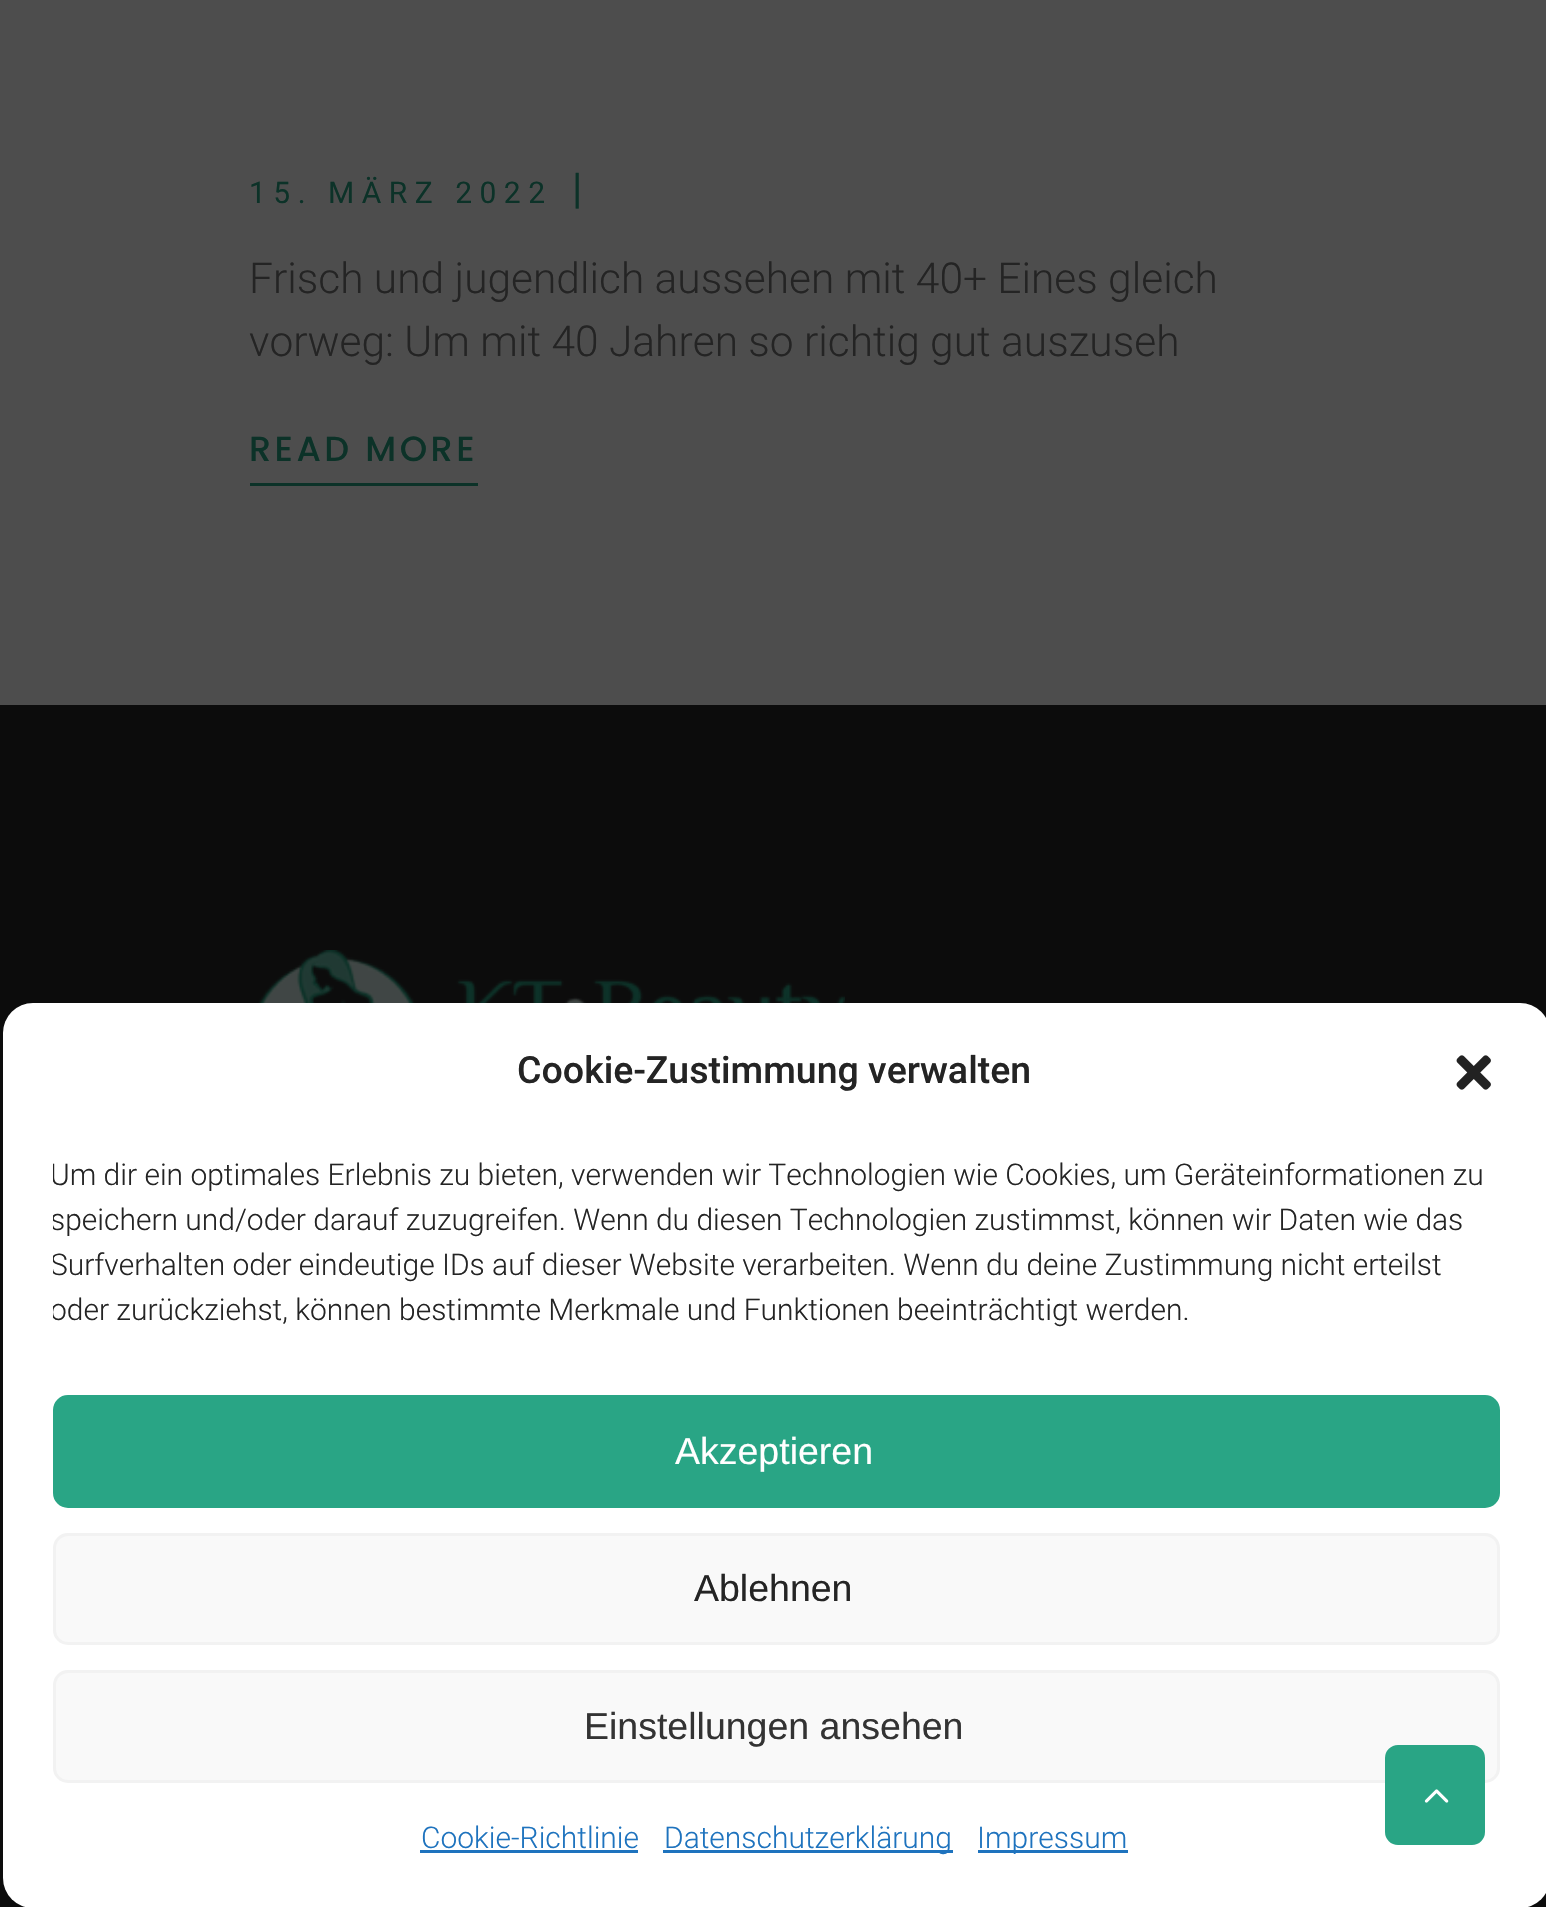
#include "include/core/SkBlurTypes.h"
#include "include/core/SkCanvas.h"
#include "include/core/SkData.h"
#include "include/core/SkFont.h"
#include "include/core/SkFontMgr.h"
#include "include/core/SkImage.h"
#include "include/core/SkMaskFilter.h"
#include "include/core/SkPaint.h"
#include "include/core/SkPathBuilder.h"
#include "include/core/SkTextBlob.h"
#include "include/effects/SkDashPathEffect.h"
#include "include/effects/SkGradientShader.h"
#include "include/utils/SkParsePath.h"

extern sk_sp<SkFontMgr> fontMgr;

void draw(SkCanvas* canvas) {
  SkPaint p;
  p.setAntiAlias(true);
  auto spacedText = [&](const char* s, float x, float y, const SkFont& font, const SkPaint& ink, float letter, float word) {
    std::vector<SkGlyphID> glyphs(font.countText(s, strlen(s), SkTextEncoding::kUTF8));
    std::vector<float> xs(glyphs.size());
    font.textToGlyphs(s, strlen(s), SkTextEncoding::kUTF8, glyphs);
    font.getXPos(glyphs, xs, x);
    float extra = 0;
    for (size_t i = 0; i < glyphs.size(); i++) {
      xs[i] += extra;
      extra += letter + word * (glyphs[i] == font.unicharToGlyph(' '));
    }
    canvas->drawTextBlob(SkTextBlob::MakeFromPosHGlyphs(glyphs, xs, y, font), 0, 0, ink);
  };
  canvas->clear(SkColorSetRGB(77, 77, 77));
  p.setColor(SkColorSetRGB(12, 50, 40));
  canvas->drawRect(SkRect::MakeLTRB(250, 483, 478, 486), p);
  p.setColor(SkColorSetRGB(12, 12, 12));
  canvas->drawRect(SkRect::MakeLTRB(0, 705, 1546, 1907), p);
  canvas->drawImageRect(SkImages::DeferredFromEncodedData(SkData::MakeFromFileName("images/1.png")), SkRect::MakeLTRB(258, 950, 845, 1003), SkSamplingOptions());
  p.setColor(SK_ColorWHITE);
  canvas->drawRoundRect(SkRect::MakeLTRB(3, 1003, 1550, 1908), 30, 30, p);
  p.setColor(SkColorSetRGB(249, 249, 249));
  canvas->drawRoundRect(SkRect::MakeLTRB(54.5f, 1671.5f, 1498.5f, 1781.5f), 13.5f, 13.5f, p);
  p.setStyle(SkPaint::kStroke_Style);
  p.setStrokeWidth(3);
  p.setColor(SkColorSetRGB(242, 242, 242));
  canvas->drawRoundRect(SkRect::MakeLTRB(54.5f, 1671.5f, 1498.5f, 1781.5f), 13.5f, 13.5f, p);
  p.setStyle(SkPaint::kFill_Style);
  p.setColor(SkColorSetRGB(41, 165, 133));
  canvas->drawRoundRect(SkRect::MakeLTRB(1386.5f, 1746.5f, 1483.5f, 1843.5f), 11.5f, 11.5f, p);
  p.setStyle(SkPaint::kStroke_Style);
  canvas->drawRoundRect(SkRect::MakeLTRB(1386.5f, 1746.5f, 1483.5f, 1843.5f), 11.5f, 11.5f, p);
  canvas->drawImageRect(SkImages::DeferredFromEncodedData(SkData::MakeFromFileName("images/2.png")), SkRect::MakeLTRB(1424, 1789, 1449, 1803), SkSamplingOptions());
  canvas->drawImageRect(SkImages::DeferredFromEncodedData(SkData::MakeFromFileName("images/3.png")), SkRect::MakeLTRB(1456, 1055, 1491, 1090), SkSamplingOptions());
  p.setStyle(SkPaint::kFill_Style);
  canvas->drawRoundRect(SkRect::MakeLTRB(54.5f, 1396.5f, 1498.5f, 1506.5f), 13.5f, 13.5f, p);
  p.setStyle(SkPaint::kStroke_Style);
  canvas->drawRoundRect(SkRect::MakeLTRB(54.5f, 1396.5f, 1498.5f, 1506.5f), 13.5f, 13.5f, p);
  p.setStyle(SkPaint::kFill_Style);
  p.setColor(SkColorSetRGB(249, 249, 249));
  canvas->drawRoundRect(SkRect::MakeLTRB(54.5f, 1534.5f, 1498.5f, 1643.5f), 13.5f, 13.5f, p);
  p.setStyle(SkPaint::kStroke_Style);
  p.setColor(SkColorSetRGB(242, 242, 242));
  canvas->drawRoundRect(SkRect::MakeLTRB(54.5f, 1534.5f, 1498.5f, 1643.5f), 13.5f, 13.5f, p);
  p.setStyle(SkPaint::kFill_Style);
  p.setColor(SkColorSetRGB(30, 115, 190));
  canvas->drawRect(SkRect::MakeLTRB(420, 1850, 638, 1853), p);
  canvas->drawRect(SkRect::MakeLTRB(663, 1850, 953, 1853), p);
  canvas->drawRect(SkRect::MakeLTRB(978, 1850, 1128, 1853), p);
  SkFont font1(fontMgr->matchFamilyStyle("Roboto", SkFontStyle::Normal()), 30);
  font1.setSubpixel(true);
  p.setColor(SkColorSetRGB(12, 50, 40));
  spacedText("15. MÄRZ 2022", 249, 203, font1, p, 7.5f, 0);
  SkFont font2(fontMgr->matchFamilyStyle("Roboto", SkFontStyle::Normal()), 42.5f);
  font2.setSubpixel(true);
  canvas->drawString("|", 572, 203, font2, p);
  SkFont font3(fontMgr->matchFamilyStyle("Roboto", SkFontStyle(300, SkFontStyle::kNormal_Width, SkFontStyle::kUpright_Slant)), 42.5f);
  font3.setSubpixel(true);
  p.setColor(SkColorSetRGB(36, 36, 36));
  canvas->drawString("Frisch und jugendlich aussehen mit 40+ Eines gleich", 249, 293, font3, p);
  canvas->drawString("vorweg: Um mit 40 Jahren so richtig gut auszuseh", 249, 356, font3, p);
  SkFont font4(fontMgr->matchFamilyStyle("Poppins", SkFontStyle(500, SkFontStyle::kNormal_Width, SkFontStyle::kUpright_Slant)), 35);
  font4.setSubpixel(true);
  p.setColor(SkColorSetRGB(12, 50, 40));
  spacedText("READ MORE", 249, 461, font4, p, 3.5f, 0);
  SkFont font5(fontMgr->matchFamilyStyle("Roboto", SkFontStyle(500, SkFontStyle::kNormal_Width, SkFontStyle::kUpright_Slant)), 37.5f);
  font5.setSubpixel(true);
  p.setColor(SkColorSetRGB(36, 36, 36));
  canvas->drawString("Cookie-Zustimmung verwalten", 517, 1083, font5, p);
  canvas->save();
  canvas->clipRect(SkRect::MakeLTRB(53, 1153, 1500, 1345));
  SkFont font6(fontMgr->matchFamilyStyle("Roboto", SkFontStyle(300, SkFontStyle::kNormal_Width, SkFontStyle::kUpright_Slant)), 30);
  font6.setSubpixel(true);
  canvas->drawString("Um dir ein optimales Erlebnis zu bieten, verwenden wir Technologien wie Cookies, um Geräteinformationen zu", 50, 1185, font6, p);
  canvas->drawString("speichern und/oder darauf zuzugreifen. Wenn du diesen Technologien zustimmst, können wir Daten wie das", 50, 1230, font6, p);
  canvas->drawString("Surfverhalten oder eindeutige IDs auf dieser Website verarbeiten. Wenn du deine Zustimmung nicht erteilst", 50, 1275, font6, p);
  canvas->drawString("oder zurückziehst, können bestimmte Merkmale und Funktionen beeinträchtigt werden.", 50, 1320, font6, p);
  canvas->restore();
  SkFont font7(fontMgr->matchFamilyStyle("Liberation Sans", SkFontStyle::Normal()), 37.5f);
  font7.setSubpixel(true);
  p.setColor(SK_ColorWHITE);
  canvas->drawString("Akzeptieren", 675, 1464, font7, p);
  p.setColor(SkColorSetRGB(36, 36, 36));
  canvas->drawString("Ablehnen", 694, 1601, font7, p);
  p.setColor(SkColorSetRGB(51, 51, 51));
  canvas->drawString("Einstellungen ansehen", 584, 1739, font7, p);
  p.setColor(SkColorSetRGB(30, 115, 190));
  canvas->drawString("Cookie-Richtlinie", 421, 1848, font6, p);
  canvas->drawString("Datenschutzerklärung", 664, 1848, font6, p);
  canvas->drawString("Impressum", 977, 1848, font6, p);
}
